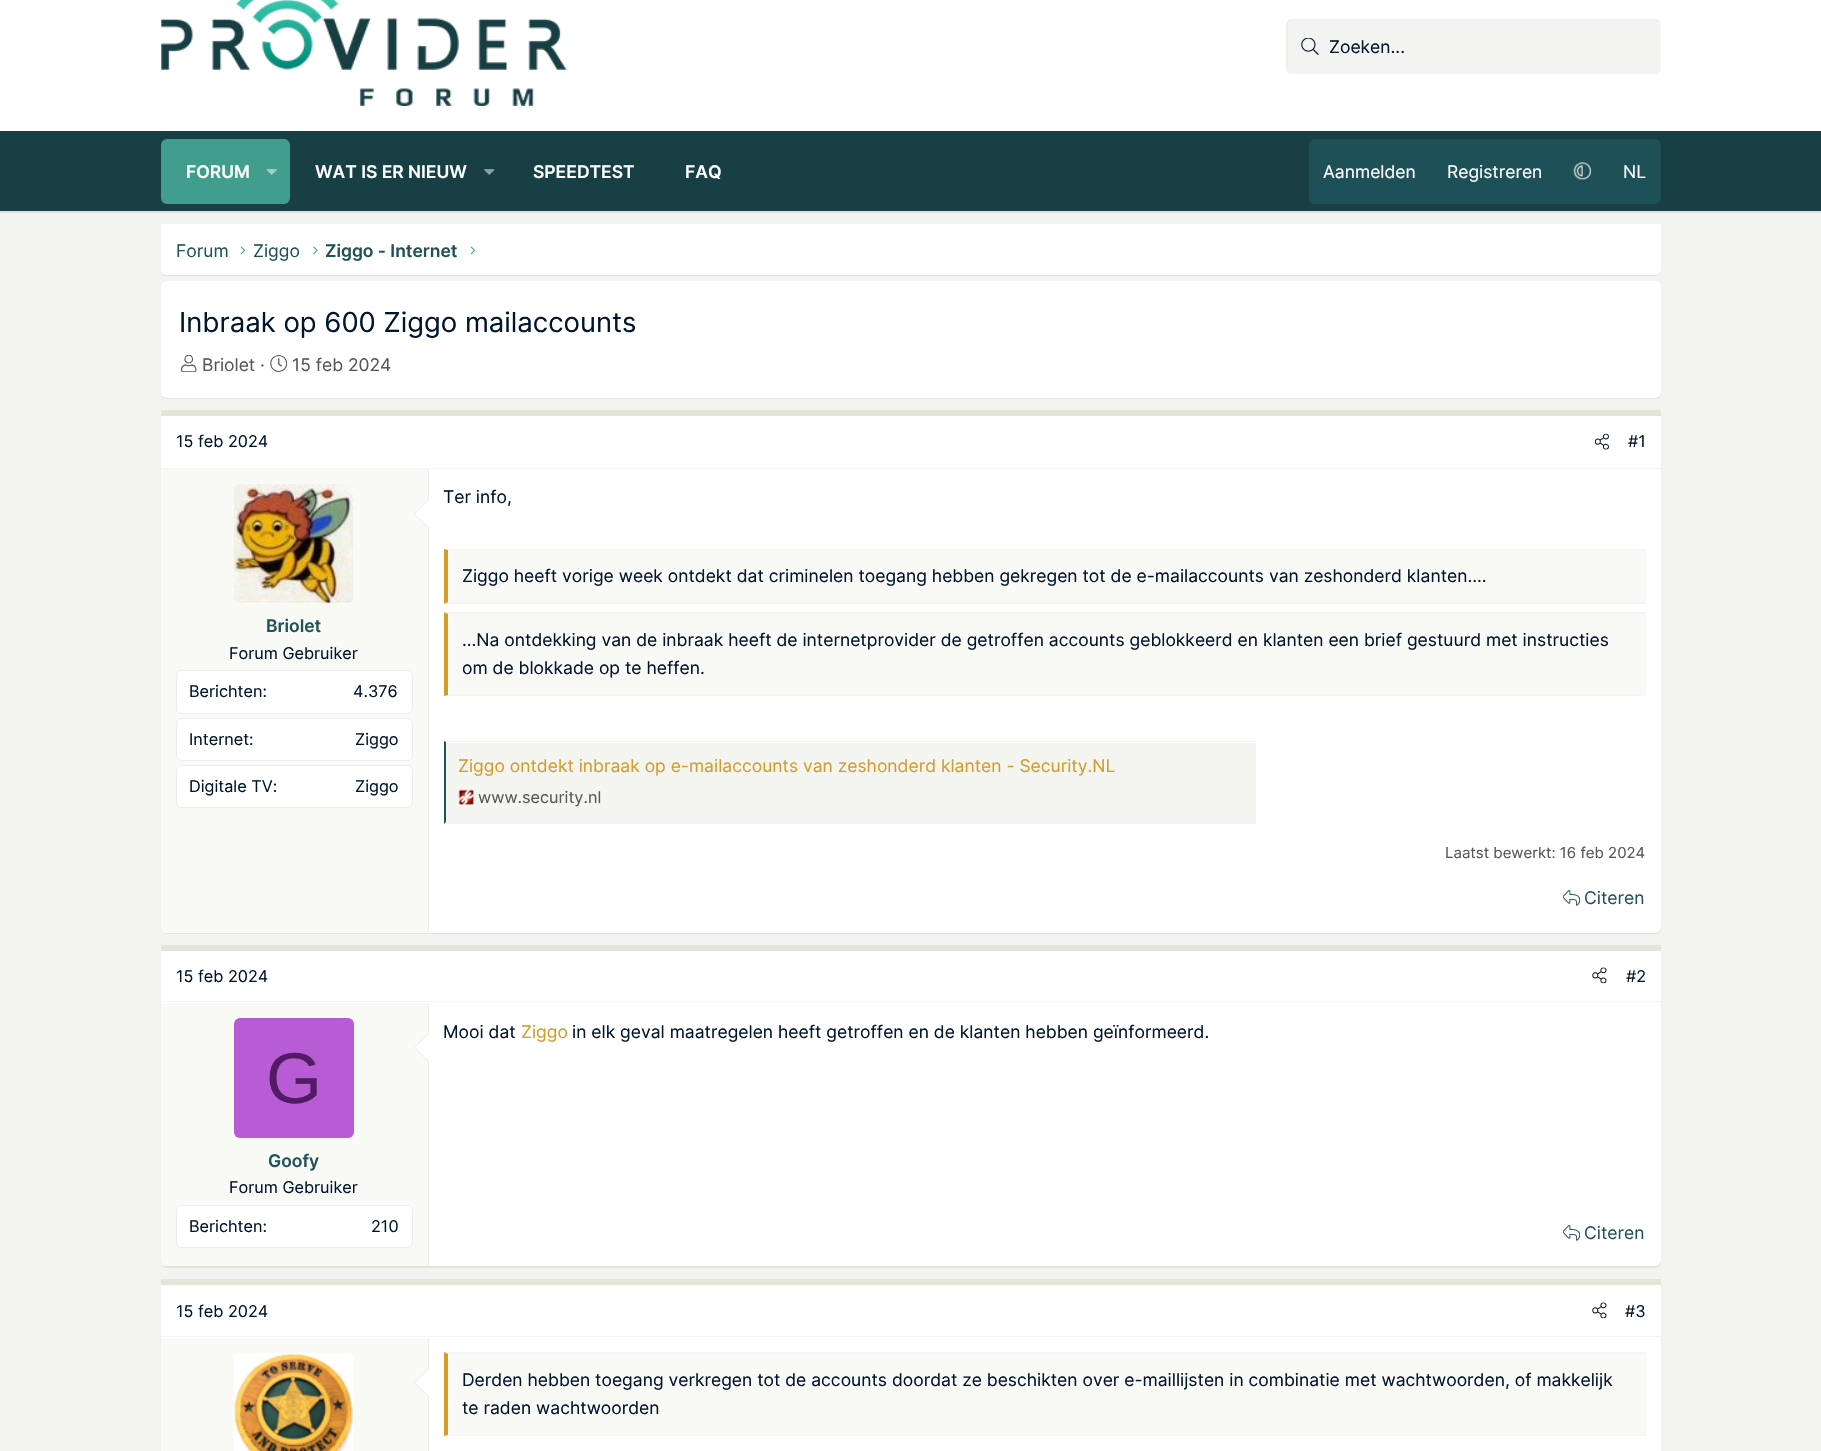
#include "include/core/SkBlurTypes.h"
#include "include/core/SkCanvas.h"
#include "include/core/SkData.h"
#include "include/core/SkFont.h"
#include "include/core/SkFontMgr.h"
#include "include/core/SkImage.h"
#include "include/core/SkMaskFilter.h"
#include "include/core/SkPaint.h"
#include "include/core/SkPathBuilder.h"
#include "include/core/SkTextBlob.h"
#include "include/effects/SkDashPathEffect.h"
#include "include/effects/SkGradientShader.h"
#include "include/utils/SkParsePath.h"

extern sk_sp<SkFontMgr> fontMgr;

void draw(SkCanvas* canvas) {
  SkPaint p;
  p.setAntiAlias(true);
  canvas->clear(SkColorSetRGB(243, 243, 241));
  p.setColor(SK_ColorWHITE);
  canvas->drawRect(SkRect::MakeLTRB(0, 0, 1821, 131), p);
  canvas->drawImageRect(SkImages::DeferredFromEncodedData(SkData::MakeFromFileName("images/1.png")), SkRect::MakeLTRB(161, 0, 567, 106), SkSamplingOptions());
  p.setColor(SkColorSetRGB(243, 243, 241));
  canvas->drawRoundRect(SkRect::MakeLTRB(1286, 19, 1661, 74), 6, 6, p);
  p.setStyle(SkPaint::kStroke_Style);
  p.setStrokeWidth(1.2f);
  p.setColor(SkColorSetRGB(245, 245, 245));
  canvas->drawPath(SkPathBuilder().moveTo(1659, 21).cubicTo(1660, 22, 1660.5f, 23.5f, 1660.5f, 25).lineTo(1660.5f, 67.5f).cubicTo(1660.5f, 69, 1660, 70.5f, 1659, 71.5f).cubicTo(1658, 72.5f, 1656.5f, 73, 1655, 73).lineTo(1292.5f, 73).cubicTo(1291, 73, 1289.5f, 72.5f, 1288.5f, 71.5f).detach(), p);
  p.setColor(SkColorSetRGB(237, 237, 237));
  canvas->drawPath(SkPathBuilder().moveTo(1288.5f, 71.5f).cubicTo(1287.5f, 70.5f, 1287, 69, 1287, 67.5f).lineTo(1287, 25).cubicTo(1287, 23.5f, 1287.5f, 22, 1288.5f, 21).cubicTo(1289.5f, 20, 1291, 19.5f, 1292.5f, 19.5f).lineTo(1655, 19.5f).cubicTo(1656.5f, 19.5f, 1658, 20, 1659, 21).detach(), p);
  canvas->drawImageRect(SkImages::DeferredFromEncodedData(SkData::MakeFromFileName("images/2.png")), SkRect::MakeLTRB(1301, 38, 1319, 55), SkSamplingOptions());
  p.setStyle(SkPaint::kFill_Style);
  p.setColor(SkColorSetARGB(51, 159, 159, 111));
  p.setMaskFilter(SkMaskFilter::MakeBlur(kNormal_SkBlurStyle, 0.5f));
  canvas->drawRect(SkRect::MakeLTRB(0, 133, 1821, 213), p);
  p.setMaskFilter(nullptr);
  p.setColor(SkColorSetRGB(23, 63, 68));
  canvas->drawRect(SkRect::MakeLTRB(0, 131, 1821, 211), p);
  p.setColor(SkColorSetRGB(66, 158, 140));
  canvas->drawRoundRect(SkRect::MakeLTRB(161, 139, 290, 204), 6, 6, p);
  canvas->drawImageRect(SkImages::DeferredFromEncodedData(SkData::MakeFromFileName("images/3.png")), SkRect::MakeLTRB(266, 169, 277, 175), SkSamplingOptions());
  canvas->drawImageRect(SkImages::DeferredFromEncodedData(SkData::MakeFromFileName("images/4.png")), SkRect::MakeLTRB(484, 169, 495, 175), SkSamplingOptions());
  p.setColor(SkColorSetRGB(30, 81, 87));
  canvas->drawRoundRect(SkRect::MakeLTRB(1309, 139, 1661, 204), 6, 6, p);
  canvas->drawImageRect(SkImages::DeferredFromEncodedData(SkData::MakeFromFileName("images/5.png")), SkRect::MakeLTRB(1573, 162, 1592, 180), SkSamplingOptions());
  p.setColor(SkColorSetARGB(51, 159, 159, 111));
  p.setMaskFilter(SkMaskFilter::MakeBlur(kNormal_SkBlurStyle, 0.5f));
  canvas->drawRoundRect(SkRect::MakeLTRB(161, 225, 1661, 276), 6, 6, p);
  p.setMaskFilter(nullptr);
  p.setColor(SK_ColorWHITE);
  canvas->drawPath(SkPathBuilder().moveTo(161, 224).lineTo(1661, 224).lineTo(1661, 269).cubicTo(1661, 272.5f, 1658.5f, 275, 1655, 275).lineTo(167, 275).cubicTo(163.5f, 275, 161, 272.5f, 161, 269).close().detach(), p);
  canvas->drawImageRect(SkImages::DeferredFromEncodedData(SkData::MakeFromFileName("images/6.png")), SkRect::MakeLTRB(240, 246, 246, 255), SkSamplingOptions());
  canvas->drawImageRect(SkImages::DeferredFromEncodedData(SkData::MakeFromFileName("images/7.png")), SkRect::MakeLTRB(313, 246, 318, 255), SkSamplingOptions());
  canvas->drawImageRect(SkImages::DeferredFromEncodedData(SkData::MakeFromFileName("images/6.png")), SkRect::MakeLTRB(470, 246, 476, 255), SkSamplingOptions());
  p.setColor(SkColorSetARGB(51, 159, 159, 111));
  p.setMaskFilter(SkMaskFilter::MakeBlur(kNormal_SkBlurStyle, 0.5f));
  canvas->drawRoundRect(SkRect::MakeLTRB(161, 283, 1661, 399), 6, 6, p);
  p.setMaskFilter(nullptr);
  p.setColor(SK_ColorWHITE);
  canvas->drawRoundRect(SkRect::MakeLTRB(161, 281, 1661, 398), 6, 6, p);
  canvas->drawImageRect(SkImages::DeferredFromEncodedData(SkData::MakeFromFileName("images/8.png")), SkRect::MakeLTRB(181, 355, 197, 372), SkSamplingOptions());
  canvas->drawImageRect(SkImages::DeferredFromEncodedData(SkData::MakeFromFileName("images/9.png")), SkRect::MakeLTRB(270, 355, 288, 372), SkSamplingOptions());
  p.setColor(SkColorSetARGB(51, 159, 159, 111));
  p.setMaskFilter(SkMaskFilter::MakeBlur(kNormal_SkBlurStyle, 0.5f));
  canvas->drawRoundRect(SkRect::MakeLTRB(161, 411, 1661, 934), 6, 6, p);
  p.setMaskFilter(nullptr);
  p.setColor(SK_ColorWHITE);
  canvas->drawRoundRect(SkRect::MakeLTRB(161, 410, 1661, 933), 6, 6, p);
  p.setColor(SkColorSetRGB(228, 228, 215));
  canvas->drawRect(SkRect::MakeLTRB(161, 410, 1661, 416), p);
  p.setColor(SkColorSetRGB(245, 245, 245));
  canvas->drawRect(SkRect::MakeLTRB(161, 468, 1661, 469), p);
  canvas->drawImageRect(SkImages::DeferredFromEncodedData(SkData::MakeFromFileName("images/10.png")), SkRect::MakeLTRB(1594, 433, 1609, 450), SkSamplingOptions());
  p.setColor(SkColorSetRGB(249, 249, 246));
  canvas->drawPath(SkPathBuilder().moveTo(161, 469).lineTo(429, 469).lineTo(429, 933).lineTo(166, 933).cubicTo(163, 933, 161, 931, 161, 928).close().detach(), p);
  p.setColor(SkColorSetRGB(237, 237, 237));
  canvas->drawRect(SkRect::MakeLTRB(428, 469, 429, 933), p);
  p.setColor(SK_ColorWHITE);
  canvas->drawRoundRect(SkRect::MakeLTRB(234, 484, 354, 604), 6, 6, p);
  canvas->drawImageRect(SkImages::DeferredFromEncodedData(SkData::MakeFromFileName("images/11.png")), SkRect::MakeLTRB(234, 484, 354, 604), SkSamplingOptions());
  p.setColor(SkColorSetRGB(237, 237, 237));
  canvas->drawPath(SkPathBuilder().moveTo(429, 499).lineTo(429, 529).lineTo(414, 514).close().detach(), p);
  p.setColor(SK_ColorWHITE);
  canvas->drawPath(SkPathBuilder().moveTo(429, 500).lineTo(429, 527.5f).lineTo(415, 514).close().detach(), p);
  canvas->drawRoundRect(SkRect::MakeLTRB(176.5f, 670.5f, 412.5f, 713.5f), 5.5f, 5.5f, p);
  p.setStyle(SkPaint::kStroke_Style);
  p.setStrokeWidth(1);
  p.setColor(SkColorSetRGB(237, 237, 237));
  canvas->drawRoundRect(SkRect::MakeLTRB(176.5f, 670.5f, 412.5f, 713.5f), 5.5f, 5.5f, p);
  p.setStyle(SkPaint::kFill_Style);
  p.setColor(SK_ColorWHITE);
  canvas->drawRoundRect(SkRect::MakeLTRB(176.5f, 718.5f, 412.5f, 760.5f), 5.5f, 5.5f, p);
  p.setStyle(SkPaint::kStroke_Style);
  p.setColor(SkColorSetRGB(237, 237, 237));
  canvas->drawRoundRect(SkRect::MakeLTRB(176.5f, 718.5f, 412.5f, 760.5f), 5.5f, 5.5f, p);
  p.setStyle(SkPaint::kFill_Style);
  p.setColor(SK_ColorWHITE);
  canvas->drawRoundRect(SkRect::MakeLTRB(176.5f, 765.5f, 412.5f, 807.5f), 5.5f, 5.5f, p);
  p.setStyle(SkPaint::kStroke_Style);
  p.setColor(SkColorSetRGB(237, 237, 237));
  canvas->drawRoundRect(SkRect::MakeLTRB(176.5f, 765.5f, 412.5f, 807.5f), 5.5f, 5.5f, p);
  p.setStyle(SkPaint::kFill_Style);
  p.setColor(SkColorSetRGB(249, 249, 246));
  canvas->drawRect(SkRect::MakeLTRB(448, 550, 1645, 602), p);
  p.setColor(SkColorSetRGB(245, 245, 245));
  canvas->drawPath(SkPathBuilder().moveTo(444, 549).lineTo(1646, 549).lineTo(1645, 550).lineTo(448, 550).close().detach(), p);
  canvas->drawRect(SkRect::MakeLTRB(1645, 549, 1646, 604), p);
  canvas->drawPath(SkPathBuilder().moveTo(1646, 604).lineTo(444, 604).lineTo(448, 602).lineTo(1645, 602).close().detach(), p);
  p.setColor(SkColorSetRGB(211, 157, 39));
  canvas->drawPath(SkPathBuilder().moveTo(444, 604).lineTo(444, 549).lineTo(448, 550).lineTo(448, 602).close().detach(), p);
  p.setColor(SkColorSetRGB(249, 249, 246));
  canvas->drawRect(SkRect::MakeLTRB(448, 614, 1645, 695), p);
  p.setColor(SkColorSetRGB(245, 245, 245));
  canvas->drawPath(SkPathBuilder().moveTo(444, 612).lineTo(1646, 612).lineTo(1645, 614).lineTo(448, 614).close().detach(), p);
  canvas->drawRect(SkRect::MakeLTRB(1645, 613, 1646, 696), p);
  canvas->drawPath(SkPathBuilder().moveTo(1646, 696).lineTo(444, 696).lineTo(448, 695).lineTo(1645, 695).close().detach(), p);
  p.setColor(SkColorSetRGB(211, 157, 39));
  canvas->drawPath(SkPathBuilder().moveTo(444, 696).lineTo(444, 612).lineTo(448, 614).lineTo(448, 695).close().detach(), p);
  p.setColor(SkColorSetRGB(244, 244, 240));
  canvas->drawRect(SkRect::MakeLTRB(446, 743, 1255, 822), p);
  p.setColor(SkColorSetRGB(245, 245, 245));
  canvas->drawPath(SkPathBuilder().moveTo(444, 741).lineTo(1256, 741).lineTo(1255, 742).lineTo(446, 742).close().detach(), p);
  canvas->drawRect(SkRect::MakeLTRB(1255, 741, 1256, 824), p);
  canvas->drawPath(SkPathBuilder().moveTo(1256, 824).lineTo(444, 824).lineTo(446, 822).lineTo(1255, 822).close().detach(), p);
  p.setColor(SkColorSetRGB(34, 82, 89));
  canvas->drawPath(SkPathBuilder().moveTo(444, 824).lineTo(444, 741).lineTo(446, 742).lineTo(446, 822).close().detach(), p);
  canvas->drawImageRect(SkImages::DeferredFromEncodedData(SkData::MakeFromFileName("images/12.png")), SkRect::MakeLTRB(458, 789, 474, 805), SkSamplingOptions());
  canvas->drawImageRect(SkImages::DeferredFromEncodedData(SkData::MakeFromFileName("images/13.png")), SkRect::MakeLTRB(1563, 890, 1580, 906), SkSamplingOptions());
  p.setColor(SkColorSetARGB(51, 159, 159, 111));
  p.setMaskFilter(SkMaskFilter::MakeBlur(kNormal_SkBlurStyle, 0.5f));
  canvas->drawRoundRect(SkRect::MakeLTRB(161, 946, 1661, 1268), 6, 6, p);
  p.setMaskFilter(nullptr);
  p.setColor(SK_ColorWHITE);
  canvas->drawRoundRect(SkRect::MakeLTRB(161, 945, 1661, 1266), 6, 6, p);
  p.setColor(SkColorSetRGB(228, 228, 215));
  canvas->drawRect(SkRect::MakeLTRB(161, 945, 1661, 951), p);
  p.setColor(SkColorSetRGB(245, 245, 245));
  canvas->drawRect(SkRect::MakeLTRB(161, 1001, 1661, 1002), p);
  canvas->drawImageRect(SkImages::DeferredFromEncodedData(SkData::MakeFromFileName("images/14.png")), SkRect::MakeLTRB(1592, 967, 1607, 984), SkSamplingOptions());
  p.setColor(SkColorSetRGB(249, 249, 246));
  canvas->drawPath(SkPathBuilder().moveTo(161, 1003).lineTo(429, 1003).lineTo(429, 1266).lineTo(166, 1266).cubicTo(163, 1266, 161, 1264, 161, 1261).close().detach(), p);
  p.setColor(SkColorSetRGB(237, 237, 237));
  canvas->drawRect(SkRect::MakeLTRB(428, 1003, 429, 1266), p);
  canvas->drawPath(SkPathBuilder().moveTo(429, 1032.5f).lineTo(429, 1062.5f).lineTo(414, 1047.5f).close().detach(), p);
  p.setColor(SK_ColorWHITE);
  canvas->drawPath(SkPathBuilder().moveTo(429, 1034).lineTo(429, 1061).lineTo(415, 1047.5f).close().detach(), p);
  p.setColor(SkColorSetRGB(184, 92, 214));
  canvas->drawRoundRect(SkRect::MakeLTRB(234, 1018, 354, 1138), 6, 6, p);
  p.setColor(SK_ColorWHITE);
  canvas->drawRoundRect(SkRect::MakeLTRB(176.5f, 1205.5f, 412.5f, 1247.5f), 5.5f, 5.5f, p);
  p.setStyle(SkPaint::kStroke_Style);
  p.setColor(SkColorSetRGB(237, 237, 237));
  canvas->drawRoundRect(SkRect::MakeLTRB(176.5f, 1205.5f, 412.5f, 1247.5f), 5.5f, 5.5f, p);
  canvas->drawImageRect(SkImages::DeferredFromEncodedData(SkData::MakeFromFileName("images/13.png")), SkRect::MakeLTRB(1563, 1225, 1580, 1241), SkSamplingOptions());
  p.setStyle(SkPaint::kFill_Style);
  p.setColor(SkColorSetARGB(51, 159, 159, 111));
  p.setMaskFilter(SkMaskFilter::MakeBlur(kNormal_SkBlurStyle, 0.5f));
  canvas->drawRoundRect(SkRect::MakeLTRB(161, 1280, 1661, 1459), 6, 6, p);
  p.setMaskFilter(nullptr);
  p.setColor(SK_ColorWHITE);
  canvas->drawRect(SkRect::MakeLTRB(429, 1338, 1661, 1451), p);
  canvas->drawRect(SkRect::MakeLTRB(161, 1285, 1661, 1338), p);
  p.setColor(SkColorSetRGB(228, 228, 215));
  canvas->drawRect(SkRect::MakeLTRB(161, 1279, 1661, 1285), p);
  p.setColor(SkColorSetRGB(245, 245, 245));
  canvas->drawRect(SkRect::MakeLTRB(161, 1336, 1661, 1337), p);
  canvas->drawImageRect(SkImages::DeferredFromEncodedData(SkData::MakeFromFileName("images/15.png")), SkRect::MakeLTRB(1592, 1302, 1607, 1319), SkSamplingOptions());
  p.setColor(SkColorSetRGB(249, 249, 246));
  canvas->drawRect(SkRect::MakeLTRB(161, 1338, 428, 1451), p);
  p.setColor(SkColorSetRGB(237, 237, 237));
  canvas->drawRect(SkRect::MakeLTRB(428, 1338, 429, 1451), p);
  p.setColor(SK_ColorWHITE);
  canvas->drawRoundRect(SkRect::MakeLTRB(234, 1353, 354, 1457), 6, 6, p);
  canvas->drawImageRect(SkImages::DeferredFromEncodedData(SkData::MakeFromFileName("images/16.png")), SkRect::MakeLTRB(234, 1353, 354, 1451), SkSamplingOptions());
  p.setColor(SkColorSetRGB(237, 237, 237));
  canvas->drawPath(SkPathBuilder().moveTo(429, 1367.5f).lineTo(429, 1397.5f).lineTo(414, 1382.5f).close().detach(), p);
  p.setColor(SK_ColorWHITE);
  canvas->drawPath(SkPathBuilder().moveTo(429, 1369).lineTo(429, 1396).lineTo(415, 1382.5f).close().detach(), p);
  p.setColor(SkColorSetRGB(249, 249, 246));
  canvas->drawRect(SkRect::MakeLTRB(448, 1354, 1645, 1435), p);
  p.setColor(SkColorSetRGB(245, 245, 245));
  canvas->drawPath(SkPathBuilder().moveTo(444, 1352).lineTo(1646, 1352).lineTo(1645, 1354).lineTo(448, 1354).close().detach(), p);
  canvas->drawRect(SkRect::MakeLTRB(1645, 1353, 1646, 1436), p);
  canvas->drawPath(SkPathBuilder().moveTo(1646, 1436).lineTo(444, 1436).lineTo(448, 1435).lineTo(1645, 1435).close().detach(), p);
  p.setColor(SkColorSetRGB(211, 157, 39));
  canvas->drawPath(SkPathBuilder().moveTo(444, 1436).lineTo(444, 1352).lineTo(448, 1354).lineTo(448, 1435).close().detach(), p);
  SkFont font1(fontMgr->matchFamilyStyle("Inter", SkFontStyle::Normal()), 17.5f);
  font1.setSubpixel(true);
  p.setColor(SkColorSetRGB(0, 21, 46));
  canvas->drawString("Zoeken...", 1329, 53, font1, p);
  SkFont font2(fontMgr->matchFamilyStyle("Inter", SkFontStyle(600, SkFontStyle::kNormal_Width, SkFontStyle::kUpright_Slant)), 17.5f);
  font2.setSubpixel(true);
  p.setColor(SK_ColorWHITE);
  canvas->drawString("FORUM", 186, 178, font2, p);
  canvas->drawString("WAT IS ER NIEUW", 315, 178, font2, p);
  canvas->drawString("SPEEDTEST", 533, 178, font2, p);
  canvas->drawString("FAQ", 685, 178, font2, p);
  canvas->drawString("Aanmelden", 1323, 178, font1, p);
  canvas->drawString("Registreren", 1447, 178, font1, p);
  canvas->drawString("NL", 1623, 178, font1, p);
  p.setColor(SkColorSetRGB(34, 82, 89));
  canvas->drawString("Forum", 176, 257, font1, p);
  canvas->drawString("Ziggo", 253, 257, font1, p);
  canvas->drawString("Ziggo - Internet", 325, 257, font2, p);
  SkFont font3(fontMgr->matchFamilyStyle("Inter", SkFontStyle::Normal()), 27.5f);
  font3.setSubpixel(true);
  p.setColor(SkColorSetRGB(0, 21, 46));
  canvas->drawString("Inbraak op 600 Ziggo mailaccounts", 179, 332, font3, p);
  p.setColor(SkColorSetRGB(87, 87, 87));
  canvas->drawString("Briolet ·", 202, 371, font1, p);
  canvas->drawString("15 feb 2024", 292, 371, font1, p);
  SkFont font4(fontMgr->matchFamilyStyle("Inter", SkFontStyle::Normal()), 16.25f);
  font4.setSubpixel(true);
  p.setColor(SkColorSetRGB(0, 21, 46));
  canvas->drawString("15 feb 2024", 176, 447, font4, p);
  canvas->drawString("#1", 1628, 447, font4, p);
  p.setColor(SkColorSetRGB(34, 82, 89));
  canvas->drawString("Briolet", 266, 632, font2, p);
  p.setColor(SkColorSetRGB(0, 21, 46));
  canvas->drawString("Forum Gebruiker", 229, 659, font4, p);
  canvas->drawString("Berichten:", 189, 697, font4, p);
  canvas->drawString("4.376", 353, 697, font4, p);
  canvas->drawString("Internet:", 189, 745, font4, p);
  canvas->drawString("Ziggo", 355, 745, font4, p);
  canvas->drawString("Digitale TV:", 189, 792, font4, p);
  canvas->drawString("Ziggo", 355, 792, font4, p);
  canvas->drawString("Ter info,", 443, 503, font1, p);
  canvas->drawString("Ziggo heeft vorige week ontdekt dat criminelen toegang hebben gekregen tot de e-mailaccounts van zeshonderd klanten.…", 462, 582, font1, p);
  canvas->drawString("…Na ontdekking van de inbraak heeft de internetprovider de getroffen accounts geblokkeerd en klanten een brief gestuurd met instructies", 462, 646, font1, p);
  canvas->save();
  canvas->clipRect(SkRect::MakeLTRB(463, 626, 1630, 683));
  canvas->drawString("om de blokkade op te heffen.", 462, 674, font1, p);
  canvas->restore();
  p.setColor(SkColorSetRGB(211, 157, 39));
  canvas->drawString("Ziggo ontdekt inbraak op e-mailaccounts van zeshonderd klanten - Security.NL", 458, 772, font1, p);
  p.setColor(SkColorSetRGB(87, 87, 87));
  canvas->drawString("www.security.nl", 478, 803, font4, p);
  SkFont font5(fontMgr->matchFamilyStyle("Inter", SkFontStyle::Normal()), 15);
  font5.setSubpixel(true);
  canvas->drawString("Laatst bewerkt: 16 feb 2024", 1445, 858, font5, p);
  p.setColor(SkColorSetRGB(34, 82, 89));
  canvas->drawString("Citeren", 1584, 904, font1, p);
  p.setColor(SkColorSetRGB(0, 21, 46));
  canvas->drawString("15 feb 2024", 176, 982, font4, p);
  canvas->drawString("#2", 1626, 982, font4, p);
  SkFont font6(fontMgr->matchFamilyStyle("Liberation Sans", SkFontStyle::Normal()), 72);
  font6.setSubpixel(true);
  p.setColor(SkColorSetRGB(83, 26, 102));
  canvas->drawString("G", 266, 1103, font6, p);
  p.setColor(SkColorSetRGB(34, 82, 89));
  canvas->drawString("Goofy", 268, 1167, font2, p);
  p.setColor(SkColorSetRGB(0, 21, 46));
  canvas->drawString("Forum Gebruiker", 229, 1193, font4, p);
  canvas->drawString("Berichten:", 189, 1232, font4, p);
  canvas->drawString("210", 371, 1232, font4, p);
  canvas->drawString("Mooi dat", 443, 1038, font1, p);
  p.setColor(SkColorSetRGB(211, 157, 39));
  canvas->drawString("Ziggo", 521, 1038, font1, p);
  p.setColor(SkColorSetRGB(0, 21, 46));
  canvas->drawString("in elk geval maatregelen heeft getroffen en de klanten hebben geïnformeerd.", 572, 1038, font1, p);
  p.setColor(SkColorSetRGB(34, 82, 89));
  canvas->drawString("Citeren", 1584, 1239, font1, p);
  p.setColor(SkColorSetRGB(0, 21, 46));
  canvas->drawString("15 feb 2024", 176, 1317, font4, p);
  canvas->drawString("#3", 1625, 1317, font4, p);
  canvas->drawString("Derden hebben toegang verkregen tot de accounts doordat ze beschikten over e-maillijsten in combinatie met wachtwoorden, of makkelijk", 462, 1386, font1, p);
  canvas->drawString("te raden wachtwoorden", 462, 1414, font1, p);
}
